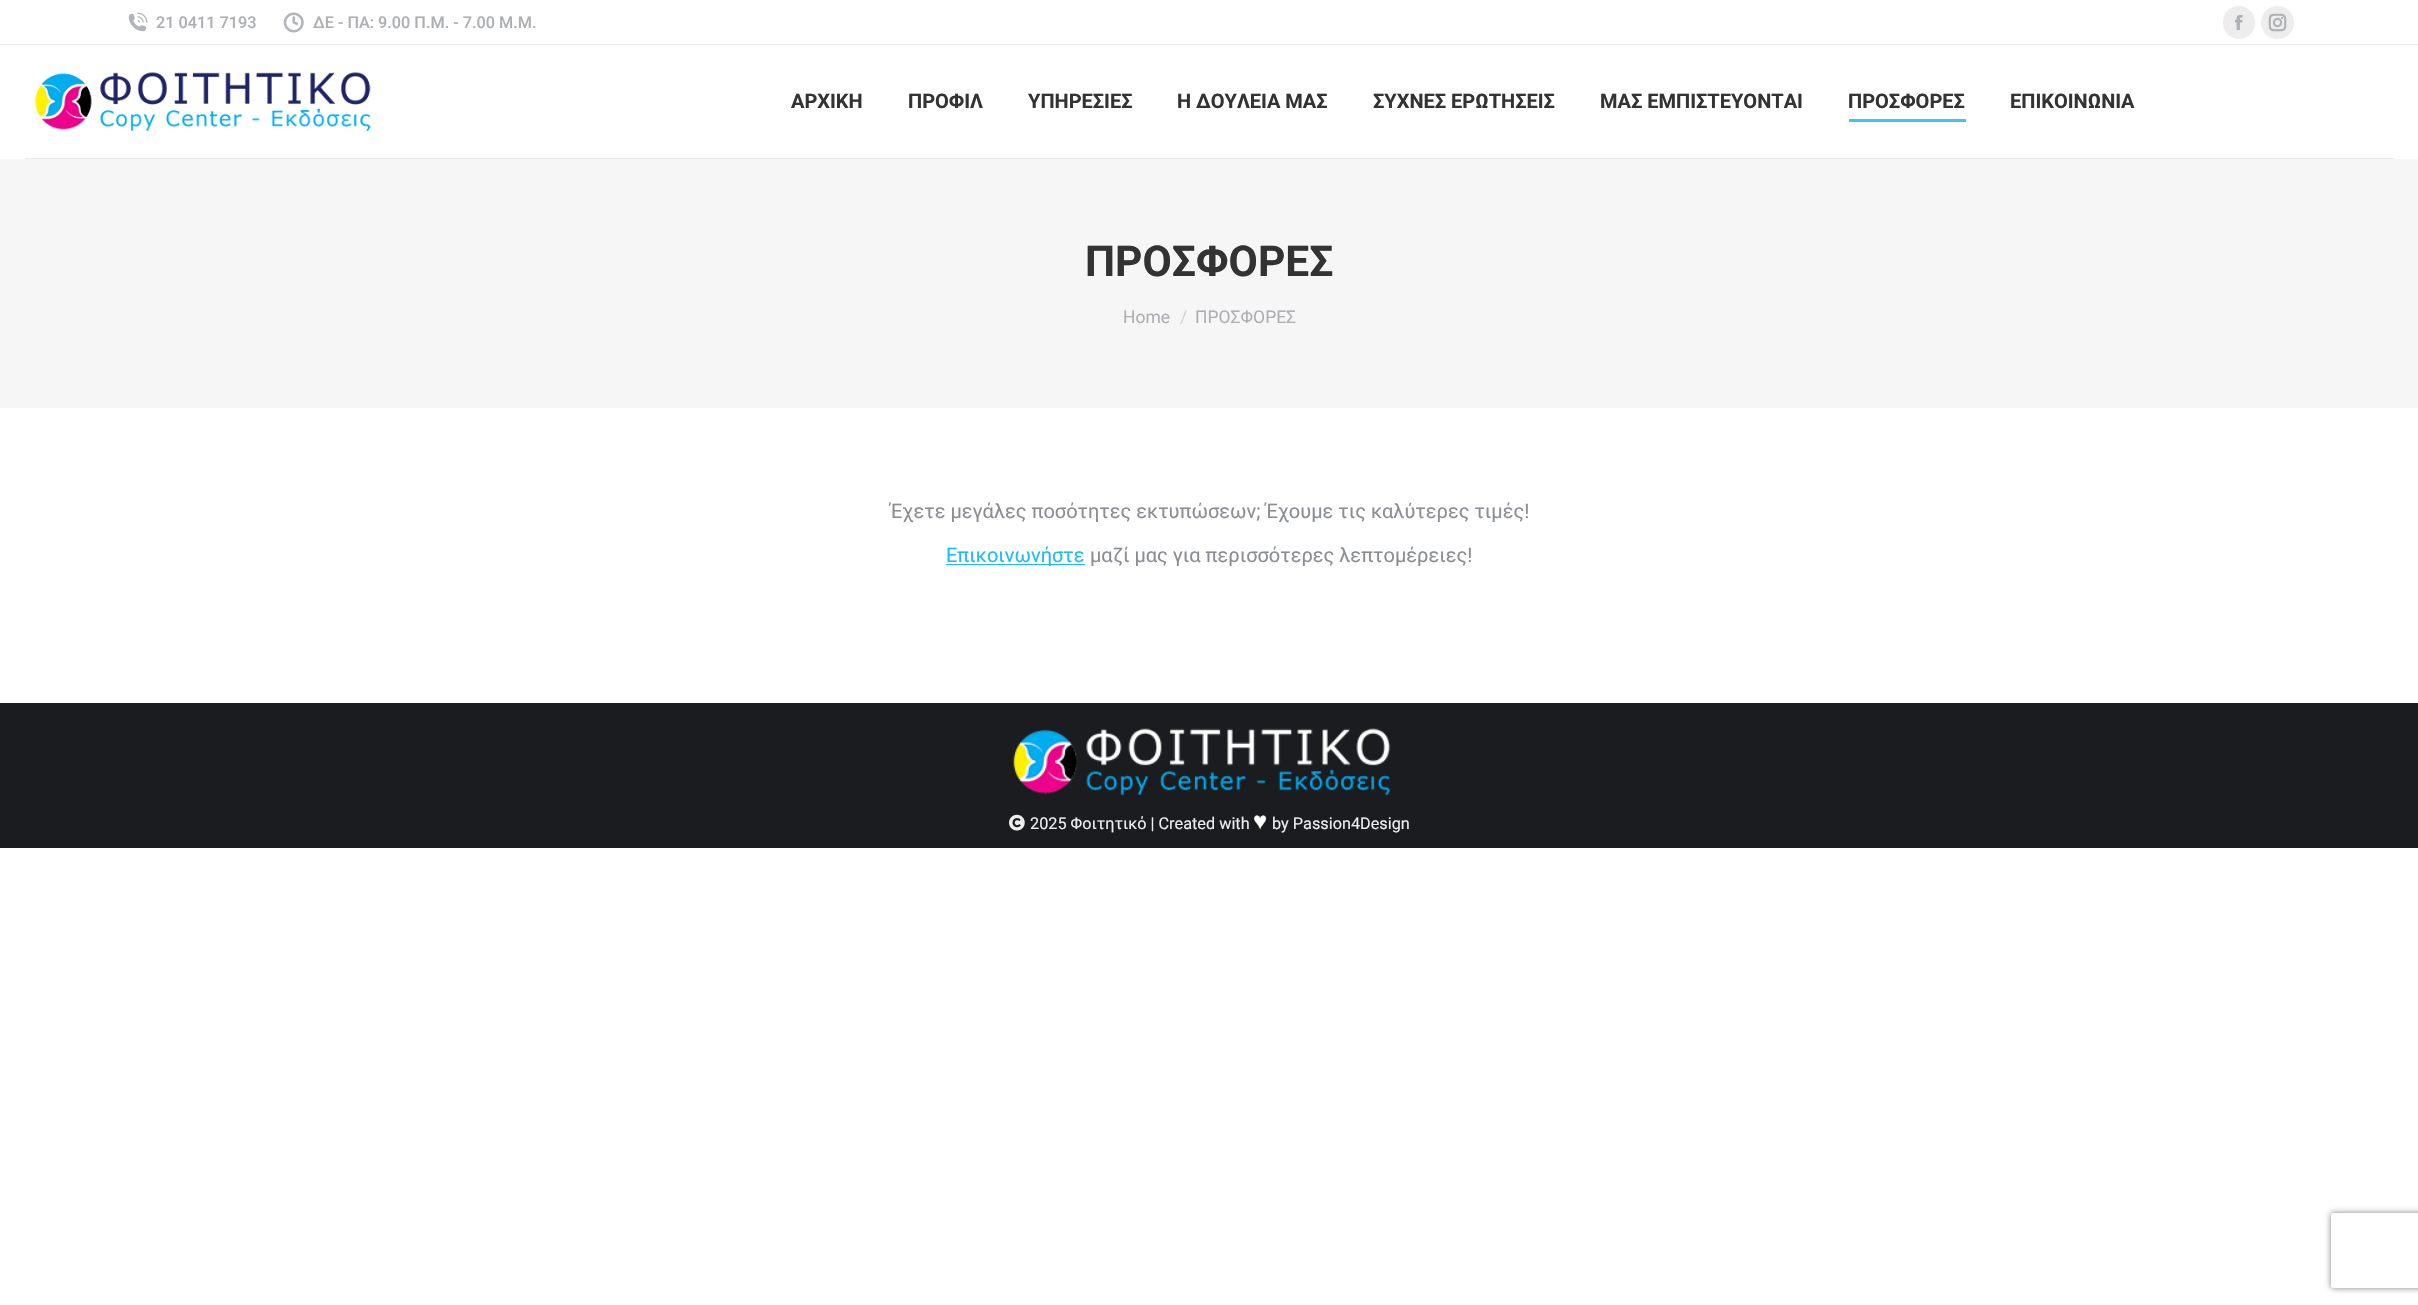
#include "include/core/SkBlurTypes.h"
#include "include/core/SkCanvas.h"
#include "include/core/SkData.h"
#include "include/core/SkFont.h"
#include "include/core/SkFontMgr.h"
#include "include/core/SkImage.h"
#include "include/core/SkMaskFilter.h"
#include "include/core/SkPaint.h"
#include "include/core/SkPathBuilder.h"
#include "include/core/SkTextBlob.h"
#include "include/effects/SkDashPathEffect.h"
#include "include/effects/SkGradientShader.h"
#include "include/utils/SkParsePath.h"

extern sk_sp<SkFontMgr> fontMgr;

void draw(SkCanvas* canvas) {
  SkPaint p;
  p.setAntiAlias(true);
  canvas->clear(SK_ColorWHITE);
  canvas->drawImageRect(SkImages::DeferredFromEncodedData(SkData::MakeFromFileName("images/1.png")), SkRect::MakeLTRB(128, 12, 148, 32), SkSamplingOptions());
  canvas->drawImageRect(SkImages::DeferredFromEncodedData(SkData::MakeFromFileName("images/2.png")), SkRect::MakeLTRB(283, 12, 304, 33), SkSamplingOptions());
  p.setColor(SkColorSetRGB(237, 237, 237));
  canvas->drawRoundRect(SkRect::MakeLTRB(2223, 6, 2255, 39), 16, 16, p);
  canvas->drawImageRect(SkImages::DeferredFromEncodedData(SkData::MakeFromFileName("images/3.png")), SkRect::MakeLTRB(2235, 15, 2243, 30), SkSamplingOptions());
  canvas->drawCircle(2277.5f, 22.5f, 16.5f, p);
  canvas->drawImageRect(SkImages::DeferredFromEncodedData(SkData::MakeFromFileName("images/4.png")), SkRect::MakeLTRB(2268, 13, 2287, 32), SkSamplingOptions());
  p.setColor(SkColorSetRGB(233, 233, 233));
  canvas->drawRect(SkRect::MakeLTRB(0, 44, 2418, 45), p);
  canvas->drawImageRect(SkImages::DeferredFromEncodedData(SkData::MakeFromFileName("images/5.png")), SkRect::MakeLTRB(34, 72, 371, 131), SkSamplingOptions());
  p.setColor(SkColorSetRGB(64, 197, 242));
  canvas->drawRect(SkRect::MakeLTRB(1849, 119, 1966, 122), p);
  p.setColor(SkColorSetRGB(233, 233, 233));
  canvas->drawRect(SkRect::MakeLTRB(25, 158, 2394, 159), p);
  p.setColor(SkColorSetRGB(246, 246, 246));
  canvas->drawRect(SkRect::MakeLTRB(0, 159, 2418, 408), p);
  p.setColor(SkColorSetRGB(30, 187, 240));
  canvas->drawRect(SkRect::MakeLTRB(946, 564, 1085, 565), p);
  p.setColor(SkColorSetRGB(26, 28, 32));
  canvas->drawRect(SkRect::MakeLTRB(0, 703, 2418, 848), p);
  canvas->drawImageRect(SkImages::DeferredFromEncodedData(SkData::MakeFromFileName("images/6.png")), SkRect::MakeLTRB(1013, 728, 1391, 796), SkSamplingOptions());
  canvas->drawImageRect(SkImages::DeferredFromEncodedData(SkData::MakeFromFileName("images/7.png")), SkRect::MakeLTRB(1009, 814, 1025, 831), SkSamplingOptions());
  canvas->save();
  canvas->clipPath(SkPathBuilder(SkPathFillType::kEvenOdd).moveTo(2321, 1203).lineTo(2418, 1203).lineTo(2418, 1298).lineTo(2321, 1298).close().moveTo(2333.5f, 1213).lineTo(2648.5f, 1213).cubicTo(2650, 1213, 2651, 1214, 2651, 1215.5f).lineTo(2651, 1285.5f).cubicTo(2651, 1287, 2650, 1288, 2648.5f, 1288).lineTo(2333.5f, 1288).cubicTo(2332, 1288, 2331, 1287, 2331, 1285.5f).lineTo(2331, 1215.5f).cubicTo(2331, 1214, 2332, 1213, 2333.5f, 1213).close().detach(), true);
  p.setColor(SkColorSetRGB(128, 128, 128));
  p.setMaskFilter(SkMaskFilter::MakeBlur(kNormal_SkBlurStyle, 3));
  canvas->drawRoundRect(SkRect::MakeLTRB(2331, 1213, 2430, 1288), 2.5f, 2.5f, p);
  p.setMaskFilter(nullptr);
  canvas->restore();
  SkFont font1(fontMgr->matchFamilyStyle("Roboto", SkFontStyle(500, SkFontStyle::kNormal_Width, SkFontStyle::kUpright_Slant)), 16.25f);
  font1.setSubpixel(true);
  p.setColor(SkColorSetRGB(173, 175, 179));
  canvas->drawString("21 0411 7193", 156, 28, font1, p);
  canvas->drawString("ΔΕ - ΠΑ: 9.00 Π.Μ. - 7.00 Μ.Μ.", 313, 28, font1, p);
  SkFont font2(fontMgr->matchFamilyStyle("Roboto", SkFontStyle::Bold()), 20);
  font2.setSubpixel(true);
  p.setColor(SkColorSetRGB(51, 51, 51));
  canvas->drawString("ΑΡΧΙΚΗ", 791, 108, font2, p);
  canvas->drawString("ΠΡΟΦΙΛ", 908, 108, font2, p);
  canvas->drawString("ΥΠΗΡΕΣΙΕΣ", 1028, 108, font2, p);
  canvas->drawString("Η ΔΟΥΛΕΙΑ ΜΑΣ", 1177, 108, font2, p);
  canvas->drawString("ΣΥΧΝΕΣ ΕΡΩΤΗΣΕΙΣ", 1373, 108, font2, p);
  canvas->drawString("ΜΑΣ ΕΜΠΙΣΤΕΥΟΝΤΑΙ", 1600, 108, font2, p);
  canvas->drawString("ΠΡΟΣΦΟΡΕΣ", 1848, 108, font2, p);
  canvas->drawString("ΕΠΙΚΟΙΝΩΝΙΑ", 2010, 108, font2, p);
  SkFont font3(fontMgr->matchFamilyStyle("Roboto", SkFontStyle::Bold()), 42.5f);
  font3.setSubpixel(true);
  canvas->drawString("ΠΡΟΣΦΟΡΕΣ", 1085, 276, font3, p);
  SkFont font4(fontMgr->matchFamilyStyle("Roboto", SkFontStyle::Normal()), 17.5f);
  font4.setSubpixel(true);
  p.setColor(SkColorSetRGB(173, 175, 179));
  canvas->drawString("Home", 1123, 323, font4, p);
  p.setColor(SkColorSetRGB(210, 211, 213));
  canvas->drawString("/", 1180, 323, font4, p);
  p.setColor(SkColorSetRGB(173, 175, 179));
  canvas->drawString("ΠΡΟΣΦΟΡΕΣ", 1195, 323, font4, p);
  SkFont font5(fontMgr->matchFamilyStyle("Roboto", SkFontStyle::Normal()), 20);
  font5.setSubpixel(true);
  p.setColor(SkColorSetRGB(139, 141, 148));
  canvas->drawString("Έχετε μεγάλες ποσότητες εκτυπώσεων; Έχουμε τις καλύτερες τιμές!", 890, 518, font5, p);
  p.setColor(SkColorSetRGB(30, 187, 240));
  canvas->drawString("Επικοινωνήστε", 946, 562, font5, p);
  p.setColor(SkColorSetRGB(139, 141, 148));
  canvas->drawString("μαζί μας για περισσότερες λεπτομέρειες!", 1090, 562, font5, p);
  SkFont font6(fontMgr->matchFamilyStyle("Roboto", SkFontStyle::Normal()), 16.25f);
  font6.setSubpixel(true);
  p.setColor(SkColorSetRGB(238, 238, 238));
  canvas->drawString("2025 Φοιτητικό | Created with", 1030, 829, font6, p);
  SkFont font7(fontMgr->matchFamilyStyle("Liberation Sans", SkFontStyle::Normal()), 24);
  font7.setSubpixel(true);
  p.setColor(SK_ColorWHITE);
  canvas->drawString("♥", 1253, 829, font7, p);
  p.setColor(SkColorSetRGB(238, 238, 238));
  canvas->drawString("by Passion4Design", 1272, 829, font6, p);
}
